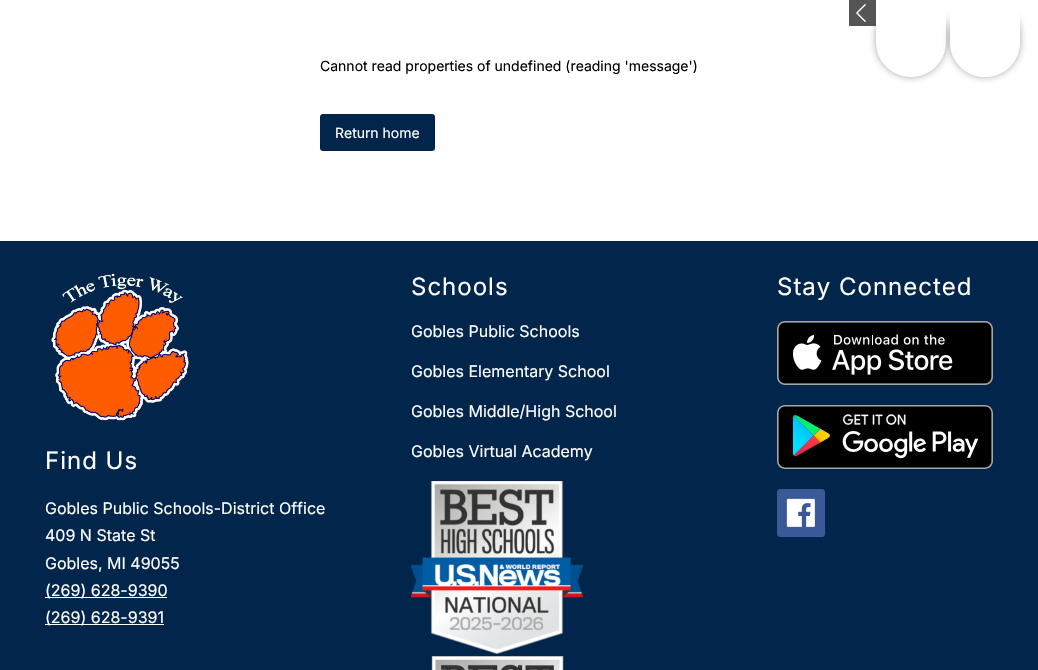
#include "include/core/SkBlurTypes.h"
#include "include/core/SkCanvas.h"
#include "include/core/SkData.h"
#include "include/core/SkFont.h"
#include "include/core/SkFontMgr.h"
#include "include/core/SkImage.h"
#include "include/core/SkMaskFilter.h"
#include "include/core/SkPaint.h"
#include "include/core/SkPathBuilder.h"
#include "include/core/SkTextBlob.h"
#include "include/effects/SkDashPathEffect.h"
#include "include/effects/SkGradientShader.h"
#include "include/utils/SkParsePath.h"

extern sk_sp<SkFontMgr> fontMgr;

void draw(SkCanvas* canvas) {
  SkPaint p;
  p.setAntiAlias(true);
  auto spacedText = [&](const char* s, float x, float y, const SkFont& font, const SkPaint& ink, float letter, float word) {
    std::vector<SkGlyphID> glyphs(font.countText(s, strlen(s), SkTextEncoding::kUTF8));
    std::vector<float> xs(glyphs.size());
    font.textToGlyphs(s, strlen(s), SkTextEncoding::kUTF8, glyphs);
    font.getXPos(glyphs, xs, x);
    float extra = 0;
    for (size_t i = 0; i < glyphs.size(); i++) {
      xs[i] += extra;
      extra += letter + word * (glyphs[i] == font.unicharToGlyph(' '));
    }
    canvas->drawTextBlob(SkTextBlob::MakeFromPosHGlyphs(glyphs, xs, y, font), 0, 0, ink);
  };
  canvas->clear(SK_ColorWHITE);
  p.setColor(SkColorSetRGB(85, 85, 85));
  canvas->drawRect(SkRect::MakeLTRB(849, 0, 876, 26), p);
  canvas->drawImageRect(SkImages::DeferredFromEncodedData(SkData::MakeFromFileName("images/1.png")), SkRect::MakeLTRB(856, 4, 866, 22), SkSamplingOptions());
  p.setColor(SkColorSetARGB(92, 0, 0, 0));
  p.setMaskFilter(SkMaskFilter::MakeBlur(kNormal_SkBlurStyle, 3.5f));
  canvas->drawRoundRect(SkRect::MakeLTRB(876, 0, 946, 77), 35, 35, p);
  p.setMaskFilter(nullptr);
  p.setColor(SK_ColorWHITE);
  canvas->drawPath(SkPathBuilder().moveTo(876, 0).lineTo(946, 0).lineTo(946, 42).cubicTo(946, 61.5f, 930.5f, 77, 911, 77).cubicTo(891.5f, 77, 876, 61.5f, 876, 42).close().detach(), p);
  canvas->save();
  canvas->clipPath(SkPathBuilder(SkPathFillType::kEvenOdd).moveTo(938, 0).lineTo(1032, 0).lineTo(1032, 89).lineTo(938, 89).close().moveTo(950, 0).lineTo(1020, 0).lineTo(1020, 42).cubicTo(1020, 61.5f, 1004.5f, 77, 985, 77).cubicTo(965.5f, 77, 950, 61.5f, 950, 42).close().detach(), true);
  p.setColor(SkColorSetARGB(92, 0, 0, 0));
  p.setMaskFilter(SkMaskFilter::MakeBlur(kNormal_SkBlurStyle, 3.5f));
  canvas->drawRoundRect(SkRect::MakeLTRB(950, 0, 1020, 77), 35, 35, p);
  p.setMaskFilter(nullptr);
  canvas->restore();
  p.setColor(SkColorSetARGB(230, 255, 255, 255));
  canvas->drawPath(SkPathBuilder().moveTo(950, 0).lineTo(1020, 0).lineTo(1020, 42).cubicTo(1020, 61.5f, 1004.5f, 77, 985, 77).cubicTo(965.5f, 77, 950, 61.5f, 950, 42).close().detach(), p);
  p.setColor(SkColorSetRGB(2, 38, 75));
  canvas->drawRoundRect(SkRect::MakeLTRB(320, 114, 435, 151), 3, 3, p);
  canvas->drawRect(SkRect::MakeLTRB(0, 241, 1038, 670), p);
  canvas->drawImageRect(SkImages::DeferredFromEncodedData(SkData::MakeFromFileName("images/2.png")), SkRect::MakeLTRB(411, 481, 584, 655), SkSamplingOptions());
  canvas->drawImageRect(SkImages::DeferredFromEncodedData(SkData::MakeFromFileName("images/3.png")), SkRect::MakeLTRB(431, 656, 564, 670), SkSamplingOptions());
  canvas->drawImageRect(SkImages::DeferredFromEncodedData(SkData::MakeFromFileName("images/4.png")), SkRect::MakeLTRB(777, 321, 993, 385), SkSamplingOptions());
  canvas->drawImageRect(SkImages::DeferredFromEncodedData(SkData::MakeFromFileName("images/5.png")), SkRect::MakeLTRB(777, 405, 993, 469), SkSamplingOptions());
  canvas->drawImageRect(SkImages::DeferredFromEncodedData(SkData::MakeFromFileName("images/6.png")), SkRect::MakeLTRB(777, 489, 825, 537), SkSamplingOptions());
  canvas->drawImageRect(SkImages::DeferredFromEncodedData(SkData::MakeFromFileName("images/7.png")), SkRect::MakeLTRB(51, 273, 189, 421), SkSamplingOptions());
  p.setColor(SK_ColorWHITE);
  canvas->drawRect(SkRect::MakeLTRB(45, 597, 167, 598), p);
  canvas->drawRect(SkRect::MakeLTRB(45, 624, 164, 625), p);
  SkFont font1(fontMgr->matchFamilyStyle("Inter", SkFontStyle::Normal()), 14);
  font1.setSubpixel(true);
  p.setColor(SK_ColorBLACK);
  canvas->drawString("Cannot read properties of undefined (reading 'message')", 320, 71, font1, p);
  p.setColor(SK_ColorWHITE);
  canvas->drawString("Return home", 335, 138, font1, p);
  SkFont font2(fontMgr->matchFamilyStyle("Inter", SkFontStyle::Normal()), 24);
  font2.setSubpixel(true);
  spacedText("Schools", 411, 295, font2, p, 1, 0);
  SkFont font3(fontMgr->matchFamilyStyle("Inter", SkFontStyle::Normal()), 16);
  font3.setSubpixel(true);
  canvas->drawString("Gobles Public Schools", 411, 337, font3, p);
  canvas->drawString("Gobles Elementary School", 411, 377, font3, p);
  canvas->drawString("Gobles Middle/High School", 411, 417, font3, p);
  canvas->drawString("Gobles Virtual Academy", 411, 457, font3, p);
  spacedText("Stay Connected", 777, 295, font2, p, 1, 0);
  spacedText("Find Us", 45, 469, font2, p, 1, 0);
  canvas->drawString("Gobles Public Schools-District Office", 45, 514, font3, p);
  canvas->drawString("409 N State St", 45, 541, font3, p);
  canvas->drawString("Gobles, MI 49055", 45, 569, font3, p);
  canvas->drawString("(269) 628-9390", 45, 596, font3, p);
  canvas->drawString("(269) 628-9391", 45, 623, font3, p);
}
